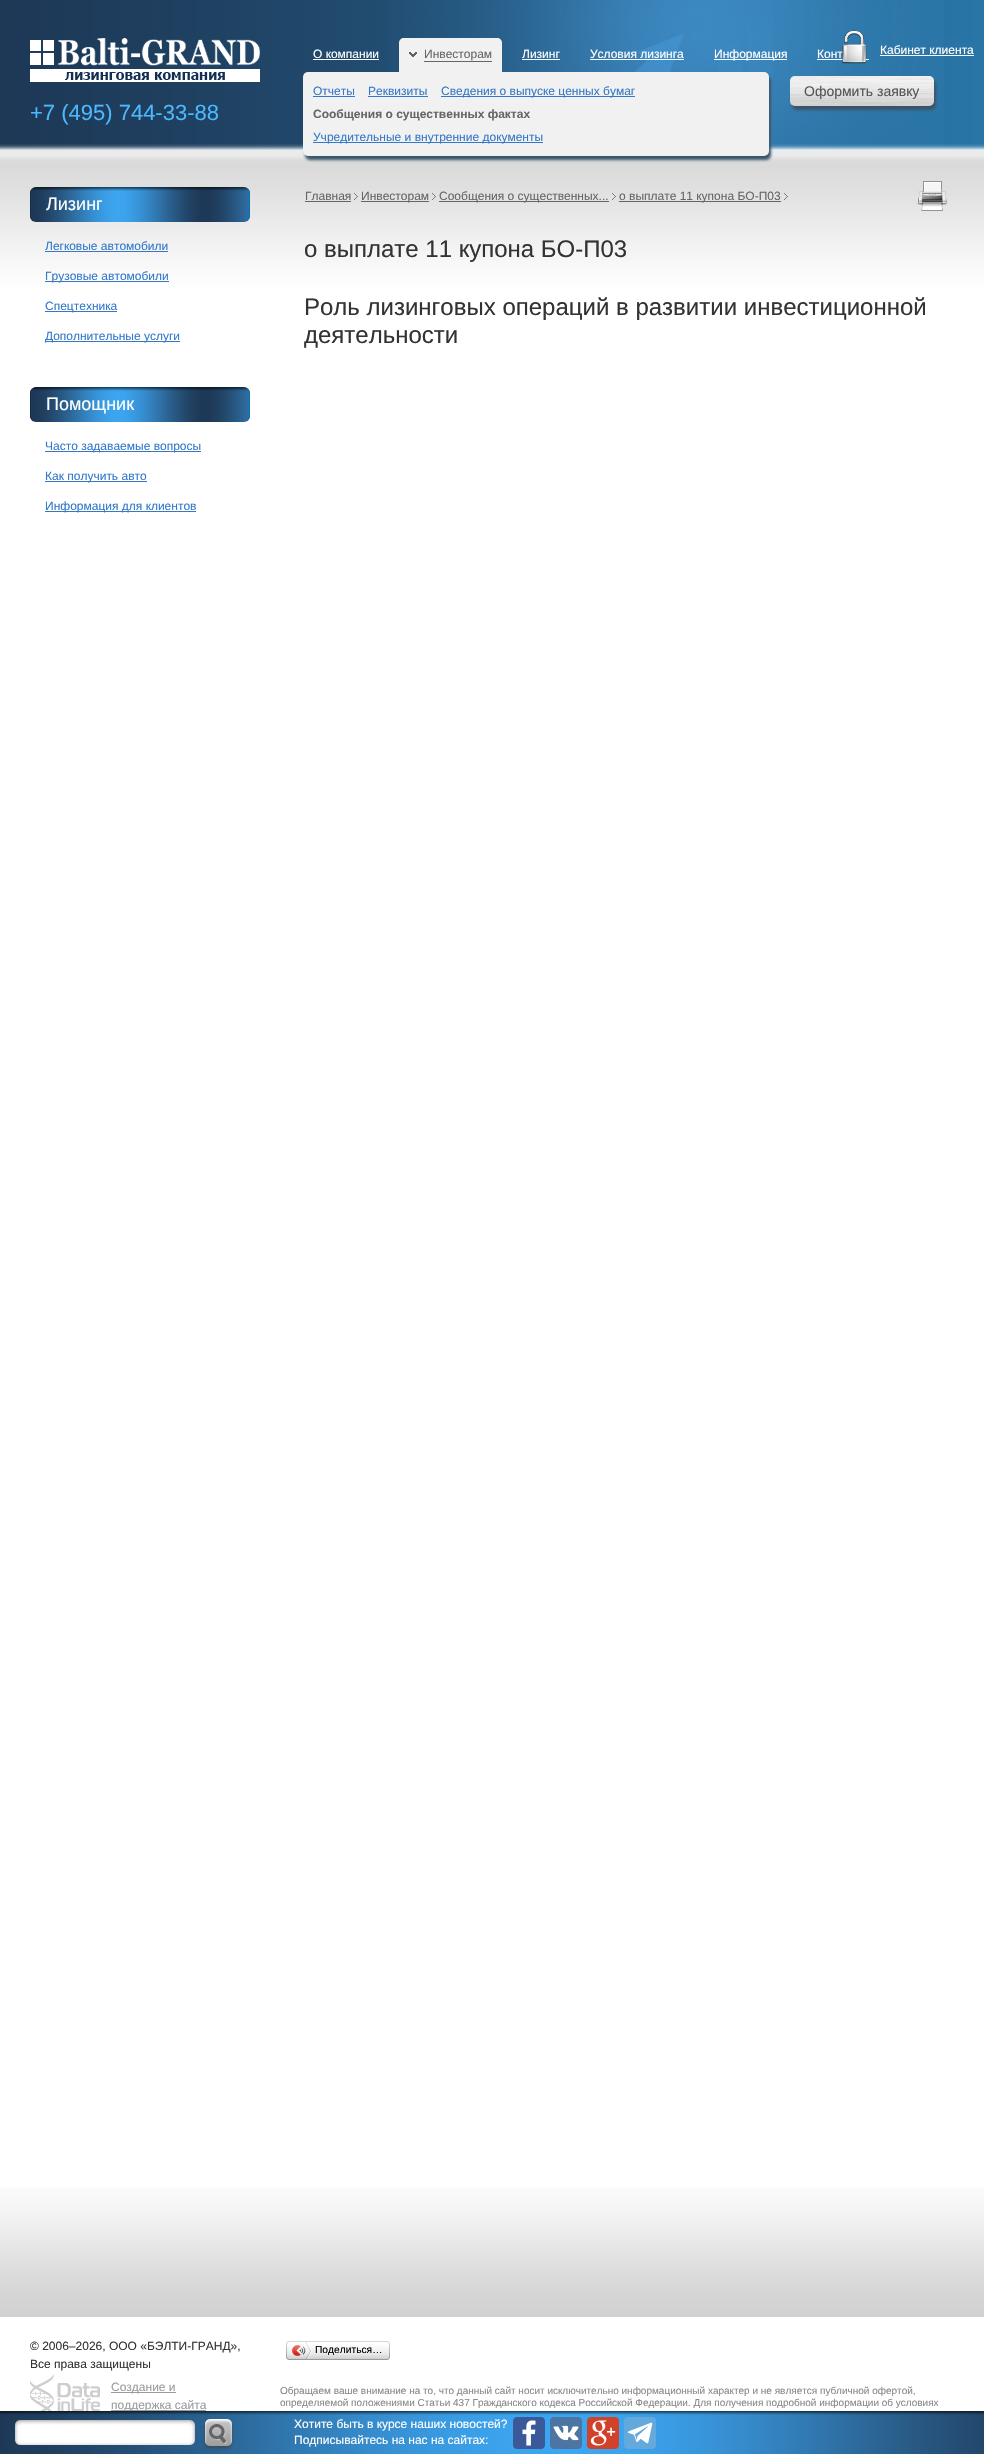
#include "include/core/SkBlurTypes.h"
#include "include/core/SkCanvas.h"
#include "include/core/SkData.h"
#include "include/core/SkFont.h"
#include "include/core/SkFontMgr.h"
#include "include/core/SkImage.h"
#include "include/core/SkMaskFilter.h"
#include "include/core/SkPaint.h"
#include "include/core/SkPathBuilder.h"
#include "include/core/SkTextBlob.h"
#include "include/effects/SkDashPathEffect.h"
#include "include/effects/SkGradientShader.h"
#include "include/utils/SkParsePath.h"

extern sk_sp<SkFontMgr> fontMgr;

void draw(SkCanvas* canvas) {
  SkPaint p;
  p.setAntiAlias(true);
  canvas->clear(SK_ColorWHITE);
  canvas->drawImageRect(SkImages::DeferredFromEncodedData(SkData::MakeFromFileName("images/1.png")), SkRect::MakeLTRB(0, 2187, 984, 2317), SkSamplingOptions());
  canvas->drawImageRect(SkImages::DeferredFromEncodedData(SkData::MakeFromFileName("images/2.png")), SkRect::MakeLTRB(0, 0, 984, 151), SkSamplingOptions());
  canvas->drawImageRect(SkImages::DeferredFromEncodedData(SkData::MakeFromFileName("images/3.png")), SkRect::MakeLTRB(388, 0, 944, 151), SkSamplingOptions());
  canvas->drawImageRect(SkImages::DeferredFromEncodedData(SkData::MakeFromFileName("images/4.png")), SkRect::MakeLTRB(0, 144, 984, 288), SkSamplingOptions());
  canvas->drawImageRect(SkImages::DeferredFromEncodedData(SkData::MakeFromFileName("images/5.png")), SkRect::MakeLTRB(30, 38, 260, 82), SkSamplingOptions());
  p.setColor(SK_ColorWHITE);
  canvas->drawRect(SkRect::MakeLTRB(313, 59, 379, 60), p);
  p.setColor(SkColorSetRGB(241, 241, 241));
  canvas->drawPath(SkPathBuilder().moveTo(404, 38).lineTo(497, 38).cubicTo(500, 38, 502, 40, 502, 43).lineTo(502, 72).lineTo(399, 72).lineTo(399, 43).cubicTo(399, 40, 401, 38, 404, 38).close().detach(), p);
  canvas->drawImageRect(SkImages::DeferredFromEncodedData(SkData::MakeFromFileName("images/6.png")), SkRect::MakeLTRB(409, 52, 417, 57), SkSamplingOptions());
  p.setColor(SkColorSetRGB(102, 102, 102));
  canvas->drawRect(SkRect::MakeLTRB(424, 61, 492, 62), p);
  p.setColor(SkColorSetRGB(57, 84, 104));
  p.setMaskFilter(SkMaskFilter::MakeBlur(kNormal_SkBlurStyle, 1.5f));
  canvas->drawRoundRect(SkRect::MakeLTRB(305, 76, 771, 160), 5, 5, p);
  p.setMaskFilter(nullptr);
  p.setColor(SkColorSetRGB(241, 241, 241));
  canvas->drawRoundRect(SkRect::MakeLTRB(303, 72, 769, 156), 5, 5, p);
  p.setColor(SkColorSetRGB(52, 120, 200));
  canvas->drawRect(SkRect::MakeLTRB(313, 96, 355, 97), p);
  canvas->drawRect(SkRect::MakeLTRB(368, 96, 428, 97), p);
  canvas->drawRect(SkRect::MakeLTRB(441, 96, 635, 97), p);
  canvas->drawRect(SkRect::MakeLTRB(313, 142, 543, 143), p);
  p.setColor(SK_ColorWHITE);
  canvas->drawRect(SkRect::MakeLTRB(522, 59, 560, 60), p);
  canvas->drawRect(SkRect::MakeLTRB(590, 59, 684, 60), p);
  canvas->drawRect(SkRect::MakeLTRB(714, 59, 787, 60), p);
  canvas->drawRect(SkRect::MakeLTRB(817, 59, 869, 60), p);
  p.setColor(SkColorSetRGB(57, 84, 104));
  p.setMaskFilter(SkMaskFilter::MakeBlur(kNormal_SkBlurStyle, 1.5f));
  canvas->drawRoundRect(SkRect::MakeLTRB(792, 80, 936, 110), 5, 5, p);
  p.setMaskFilter(nullptr);
  canvas->drawImageRect(SkImages::DeferredFromEncodedData(SkData::MakeFromFileName("images/7.png")), SkRect::MakeLTRB(790, 76, 934, 106), SkSamplingOptions());
  canvas->drawImageRect(SkImages::DeferredFromEncodedData(SkData::MakeFromFileName("images/8.png")), SkRect::MakeLTRB(790, 76, 934, 106), SkSamplingOptions());
  p.setColor(SK_ColorWHITE);
  canvas->drawRect(SkRect::MakeLTRB(880, 55, 974, 56), p);
  canvas->drawImageRect(SkImages::DeferredFromEncodedData(SkData::MakeFromFileName("images/10.png")), SkRect::MakeLTRB(30, 187, 250, 222), SkSamplingOptions());
  p.setColor(SkColorSetRGB(7, 112, 179));
  canvas->drawPath(SkPathBuilder().moveTo(250, 193).cubicTo(250, 190, 247, 187, 244, 187).cubicTo(247, 187, 249, 190, 249, 193).lineTo(249, 216).cubicTo(249, 219, 247, 222, 244, 222).cubicTo(247, 222, 250, 219, 250, 216).close().detach(), p);
  p.setColor(SkColorSetRGB(24, 45, 69));
  canvas->drawPath(SkPathBuilder().moveTo(30, 216).cubicTo(30, 219, 33, 222, 36, 222).cubicTo(33, 222, 31, 219, 31, 216).lineTo(31, 193).cubicTo(31, 190, 33, 187, 36, 187).cubicTo(33, 187, 30, 190, 30, 193).close().detach(), p);
  canvas->drawImageRect(SkImages::DeferredFromEncodedData(SkData::MakeFromFileName("images/11.png")), SkRect::MakeLTRB(32, 187, 249, 191), SkSamplingOptions());
  p.setColor(SkColorSetRGB(52, 120, 200));
  canvas->drawRect(SkRect::MakeLTRB(45, 251, 168, 252), p);
  canvas->drawRect(SkRect::MakeLTRB(45, 281, 169, 282), p);
  canvas->drawRect(SkRect::MakeLTRB(45, 311, 117, 312), p);
  canvas->drawRect(SkRect::MakeLTRB(45, 341, 180, 342), p);
  canvas->drawImageRect(SkImages::DeferredFromEncodedData(SkData::MakeFromFileName("images/12.png")), SkRect::MakeLTRB(30, 387, 250, 422), SkSamplingOptions());
  p.setColor(SkColorSetRGB(7, 112, 179));
  canvas->drawPath(SkPathBuilder().moveTo(250, 393).cubicTo(250, 390, 247, 387, 244, 387).cubicTo(247, 387, 249, 390, 249, 393).lineTo(249, 416).cubicTo(249, 419, 247, 422, 244, 422).cubicTo(247, 422, 250, 419, 250, 416).close().detach(), p);
  p.setColor(SkColorSetRGB(24, 45, 69));
  canvas->drawPath(SkPathBuilder().moveTo(30, 416).cubicTo(30, 419, 33, 422, 36, 422).cubicTo(33, 422, 31, 419, 31, 416).lineTo(31, 393).cubicTo(31, 390, 33, 387, 36, 387).cubicTo(33, 387, 30, 390, 30, 393).close().detach(), p);
  canvas->drawImageRect(SkImages::DeferredFromEncodedData(SkData::MakeFromFileName("images/13.png")), SkRect::MakeLTRB(32, 387, 249, 391), SkSamplingOptions());
  p.setColor(SkColorSetRGB(52, 120, 200));
  canvas->drawRect(SkRect::MakeLTRB(45, 451, 201, 452), p);
  canvas->drawRect(SkRect::MakeLTRB(45, 481, 147, 482), p);
  canvas->drawRect(SkRect::MakeLTRB(45, 511, 196, 512), p);
  p.setColor(SkColorSetRGB(102, 102, 102));
  canvas->drawRect(SkRect::MakeLTRB(305, 201, 351, 202), p);
  canvas->drawImageRect(SkImages::DeferredFromEncodedData(SkData::MakeFromFileName("images/14.png")), SkRect::MakeLTRB(354, 193, 358, 200), SkSamplingOptions());
  canvas->drawRect(SkRect::MakeLTRB(361, 201, 429, 202), p);
  canvas->drawImageRect(SkImages::DeferredFromEncodedData(SkData::MakeFromFileName("images/14.png")), SkRect::MakeLTRB(432, 193, 436, 200), SkSamplingOptions());
  canvas->drawRect(SkRect::MakeLTRB(439, 201, 609, 202), p);
  canvas->drawImageRect(SkImages::DeferredFromEncodedData(SkData::MakeFromFileName("images/14.png")), SkRect::MakeLTRB(612, 193, 616, 200), SkSamplingOptions());
  canvas->drawRect(SkRect::MakeLTRB(619, 201, 781, 202), p);
  canvas->drawImageRect(SkImages::DeferredFromEncodedData(SkData::MakeFromFileName("images/14.png")), SkRect::MakeLTRB(784, 193, 788, 200), SkSamplingOptions());
  canvas->drawImageRect(SkImages::DeferredFromEncodedData(SkData::MakeFromFileName("images/15.png")), SkRect::MakeLTRB(916, 181, 948, 211), SkSamplingOptions());
  canvas->drawImageRect(SkImages::DeferredFromEncodedData(SkData::MakeFromFileName("images/16.png")), SkRect::MakeLTRB(30, 2374, 100, 2411), SkSamplingOptions());
  p.setColor(SkColorSetRGB(155, 155, 155));
  canvas->drawRect(SkRect::MakeLTRB(111, 2392, 176, 2393), p);
  canvas->drawRect(SkRect::MakeLTRB(111, 2410, 206, 2411), p);
  canvas->drawImageRect(SkImages::DeferredFromEncodedData(SkData::MakeFromFileName("images/17.png")), SkRect::MakeLTRB(289, 2341, 387, 2360), SkSamplingOptions());
  canvas->drawImageRect(SkImages::DeferredFromEncodedData(SkData::MakeFromFileName("images/18.png")), SkRect::MakeLTRB(286, 2341, 289, 2360), SkSamplingOptions());
  canvas->drawImageRect(SkImages::DeferredFromEncodedData(SkData::MakeFromFileName("images/19.png")), SkRect::MakeLTRB(292, 2342, 312, 2359), SkSamplingOptions());
  canvas->drawImageRect(SkImages::DeferredFromEncodedData(SkData::MakeFromFileName("images/20.png")), SkRect::MakeLTRB(387, 2341, 390, 2360), SkSamplingOptions());
  SkFont font1(fontMgr->matchFamilyStyle("Liberation Sans", SkFontStyle::Normal()), 12);
  font1.setSubpixel(true);
  p.setColor(SK_ColorWHITE);
  canvas->drawString("О компании", 313, 58, font1, p);
  p.setColor(SkColorSetRGB(102, 102, 102));
  canvas->drawString("Инвесторам", 424, 58, font1, p);
  p.setColor(SkColorSetRGB(52, 120, 200));
  canvas->drawString("Отчеты", 313, 95, font1, p);
  canvas->drawString("Реквизиты", 368, 95, font1, p);
  canvas->drawString("Сведения о выпуске ценных бумаг", 441, 95, font1, p);
  SkFont font2(fontMgr->matchFamilyStyle("Liberation Sans", SkFontStyle::Bold()), 12);
  font2.setSubpixel(true);
  p.setColor(SkColorSetRGB(102, 102, 102));
  canvas->drawString("Сообщения о существенных фактах", 313, 118, font2, p);
  p.setColor(SkColorSetRGB(52, 120, 200));
  canvas->drawString("Учредительные и внутренние документы", 313, 141, font1, p);
  p.setColor(SK_ColorWHITE);
  canvas->drawString("Лизинг", 522, 58, font1, p);
  canvas->drawString("Условия лизинга", 590, 58, font1, p);
  canvas->drawString("Информация", 714, 58, font1, p);
  canvas->drawString("Конт", 817, 58, font1, p);
  SkFont font3(fontMgr->matchFamilyStyle("Liberation Sans", SkFontStyle::Normal()), 14);
  font3.setSubpixel(true);
  p.setColor(SkColorSetRGB(85, 85, 85));
  canvas->drawString("Оформить заявку", 804, 96, font3, p);
  canvas->drawImageRect(SkImages::DeferredFromEncodedData(SkData::MakeFromFileName("images/9.png")), SkRect::MakeLTRB(842, 30, 867, 64), SkSamplingOptions());
  p.setColor(SK_ColorWHITE);
  canvas->drawString("Кабинет клиента", 880, 54, font1, p);
  SkFont font4(fontMgr->matchFamilyStyle("Liberation Sans", SkFontStyle::Normal()), 22);
  font4.setSubpixel(true);
  p.setColor(SkColorSetRGB(75, 184, 255));
  canvas->drawString("+7 (495) 744-33-88", 30, 120, font4, p);
  SkFont font5(fontMgr->matchFamilyStyle("Liberation Sans", SkFontStyle::Normal()), 18);
  font5.setSubpixel(true);
  p.setColor(SK_ColorWHITE);
  canvas->drawString("Лизинг", 46, 210, font5, p);
  p.setColor(SkColorSetRGB(52, 120, 200));
  canvas->drawString("Легковые автомобили", 45, 250, font1, p);
  canvas->drawString("Грузовые автомобили", 45, 280, font1, p);
  canvas->drawString("Спецтехника", 45, 310, font1, p);
  canvas->drawString("Дополнительные услуги", 45, 340, font1, p);
  p.setColor(SK_ColorWHITE);
  canvas->drawString("Помощник", 46, 410, font5, p);
  p.setColor(SkColorSetRGB(52, 120, 200));
  canvas->drawString("Часто задаваемые вопросы", 45, 450, font1, p);
  canvas->drawString("Как получить авто", 45, 480, font1, p);
  canvas->drawString("Информация для клиентов", 45, 510, font1, p);
  p.setColor(SkColorSetRGB(102, 102, 102));
  canvas->drawString("Главная", 305, 200, font1, p);
  canvas->drawString("Инвесторам", 361, 200, font1, p);
  canvas->drawString("Сообщения о существенных...", 439, 200, font1, p);
  canvas->drawString("о выплате 11 купона БО-П03", 619, 200, font1, p);
  SkFont font6(fontMgr->matchFamilyStyle("Liberation Sans", SkFontStyle::Normal()), 24);
  font6.setSubpixel(true);
  p.setColor(SkColorSetRGB(51, 51, 51));
  canvas->drawString("о выплате 11 купона БО-П03", 304, 257, font6, p);
  canvas->drawString("Роль лизинговых операций в развитии инвестиционной", 304, 315, font6, p);
  canvas->drawString("деятельности", 304, 343, font6, p);
  canvas->drawString("© 2006–2026, ООО «БЭЛТИ-ГРАНД»,", 30, 2350, font1, p);
  canvas->drawString("Все права защищены", 30, 2368, font1, p);
  p.setColor(SkColorSetRGB(155, 155, 155));
  canvas->drawString("Создание и", 111, 2391, font1, p);
  canvas->drawString("поддержка сайта", 111, 2409, font1, p);
  SkFont font7(fontMgr->matchFamilyStyle("Liberation Sans", SkFontStyle::Normal()), 10.25f);
  font7.setSubpixel(true);
  p.setColor(SK_ColorBLACK);
  canvas->drawString("Поделиться…", 315, 2353, font7, p);
  SkFont font8(fontMgr->matchFamilyStyle("Liberation Sans", SkFontStyle::Normal()), 10);
  font8.setSubpixel(true);
  p.setColor(SkColorSetRGB(136, 136, 136));
  canvas->drawString("Обращаем ваше внимание на то, что данный сайт носит исключительно информационный характер и не является публичной офертой,", 280, 2394, font8, p);
  canvas->drawString("определяемой положениями Статьи 437 Гражданского кодекса Российской Федерации. Для получения подробной информации об условиях", 280, 2406, font8, p);
  canvas->drawImageRect(SkImages::DeferredFromEncodedData(SkData::MakeFromFileName("images/21.png")), SkRect::MakeLTRB(0, 2411, 984, 2454), SkSamplingOptions());
  canvas->drawImageRect(SkImages::DeferredFromEncodedData(SkData::MakeFromFileName("images/22.png")), SkRect::MakeLTRB(21, 2420, 189, 2445), SkSamplingOptions());
  canvas->drawImageRect(SkImages::DeferredFromEncodedData(SkData::MakeFromFileName("images/23.png")), SkRect::MakeLTRB(15, 2420, 21, 2445), SkSamplingOptions());
  canvas->drawImageRect(SkImages::DeferredFromEncodedData(SkData::MakeFromFileName("images/24.png")), SkRect::MakeLTRB(189, 2420, 195, 2445), SkSamplingOptions());
  canvas->drawImageRect(SkImages::DeferredFromEncodedData(SkData::MakeFromFileName("images/25.png")), SkRect::MakeLTRB(203, 2418, 235, 2451), SkSamplingOptions());
  p.setColor(SK_ColorWHITE);
  canvas->drawString("Хотите быть в курсе наших новостей?", 294, 2428, font1, p);
  canvas->drawString("Подписывайтесь на нас на сайтах:", 294, 2444, font1, p);
  canvas->drawImageRect(SkImages::DeferredFromEncodedData(SkData::MakeFromFileName("images/26.png")), SkRect::MakeLTRB(513, 2417, 545, 2449), SkSamplingOptions());
  canvas->drawImageRect(SkImages::DeferredFromEncodedData(SkData::MakeFromFileName("images/27.png")), SkRect::MakeLTRB(550, 2417, 582, 2449), SkSamplingOptions());
  canvas->drawImageRect(SkImages::DeferredFromEncodedData(SkData::MakeFromFileName("images/28.png")), SkRect::MakeLTRB(587, 2417, 619, 2449), SkSamplingOptions());
  canvas->drawImageRect(SkImages::DeferredFromEncodedData(SkData::MakeFromFileName("images/29.png")), SkRect::MakeLTRB(624, 2417, 656, 2449), SkSamplingOptions());
}
